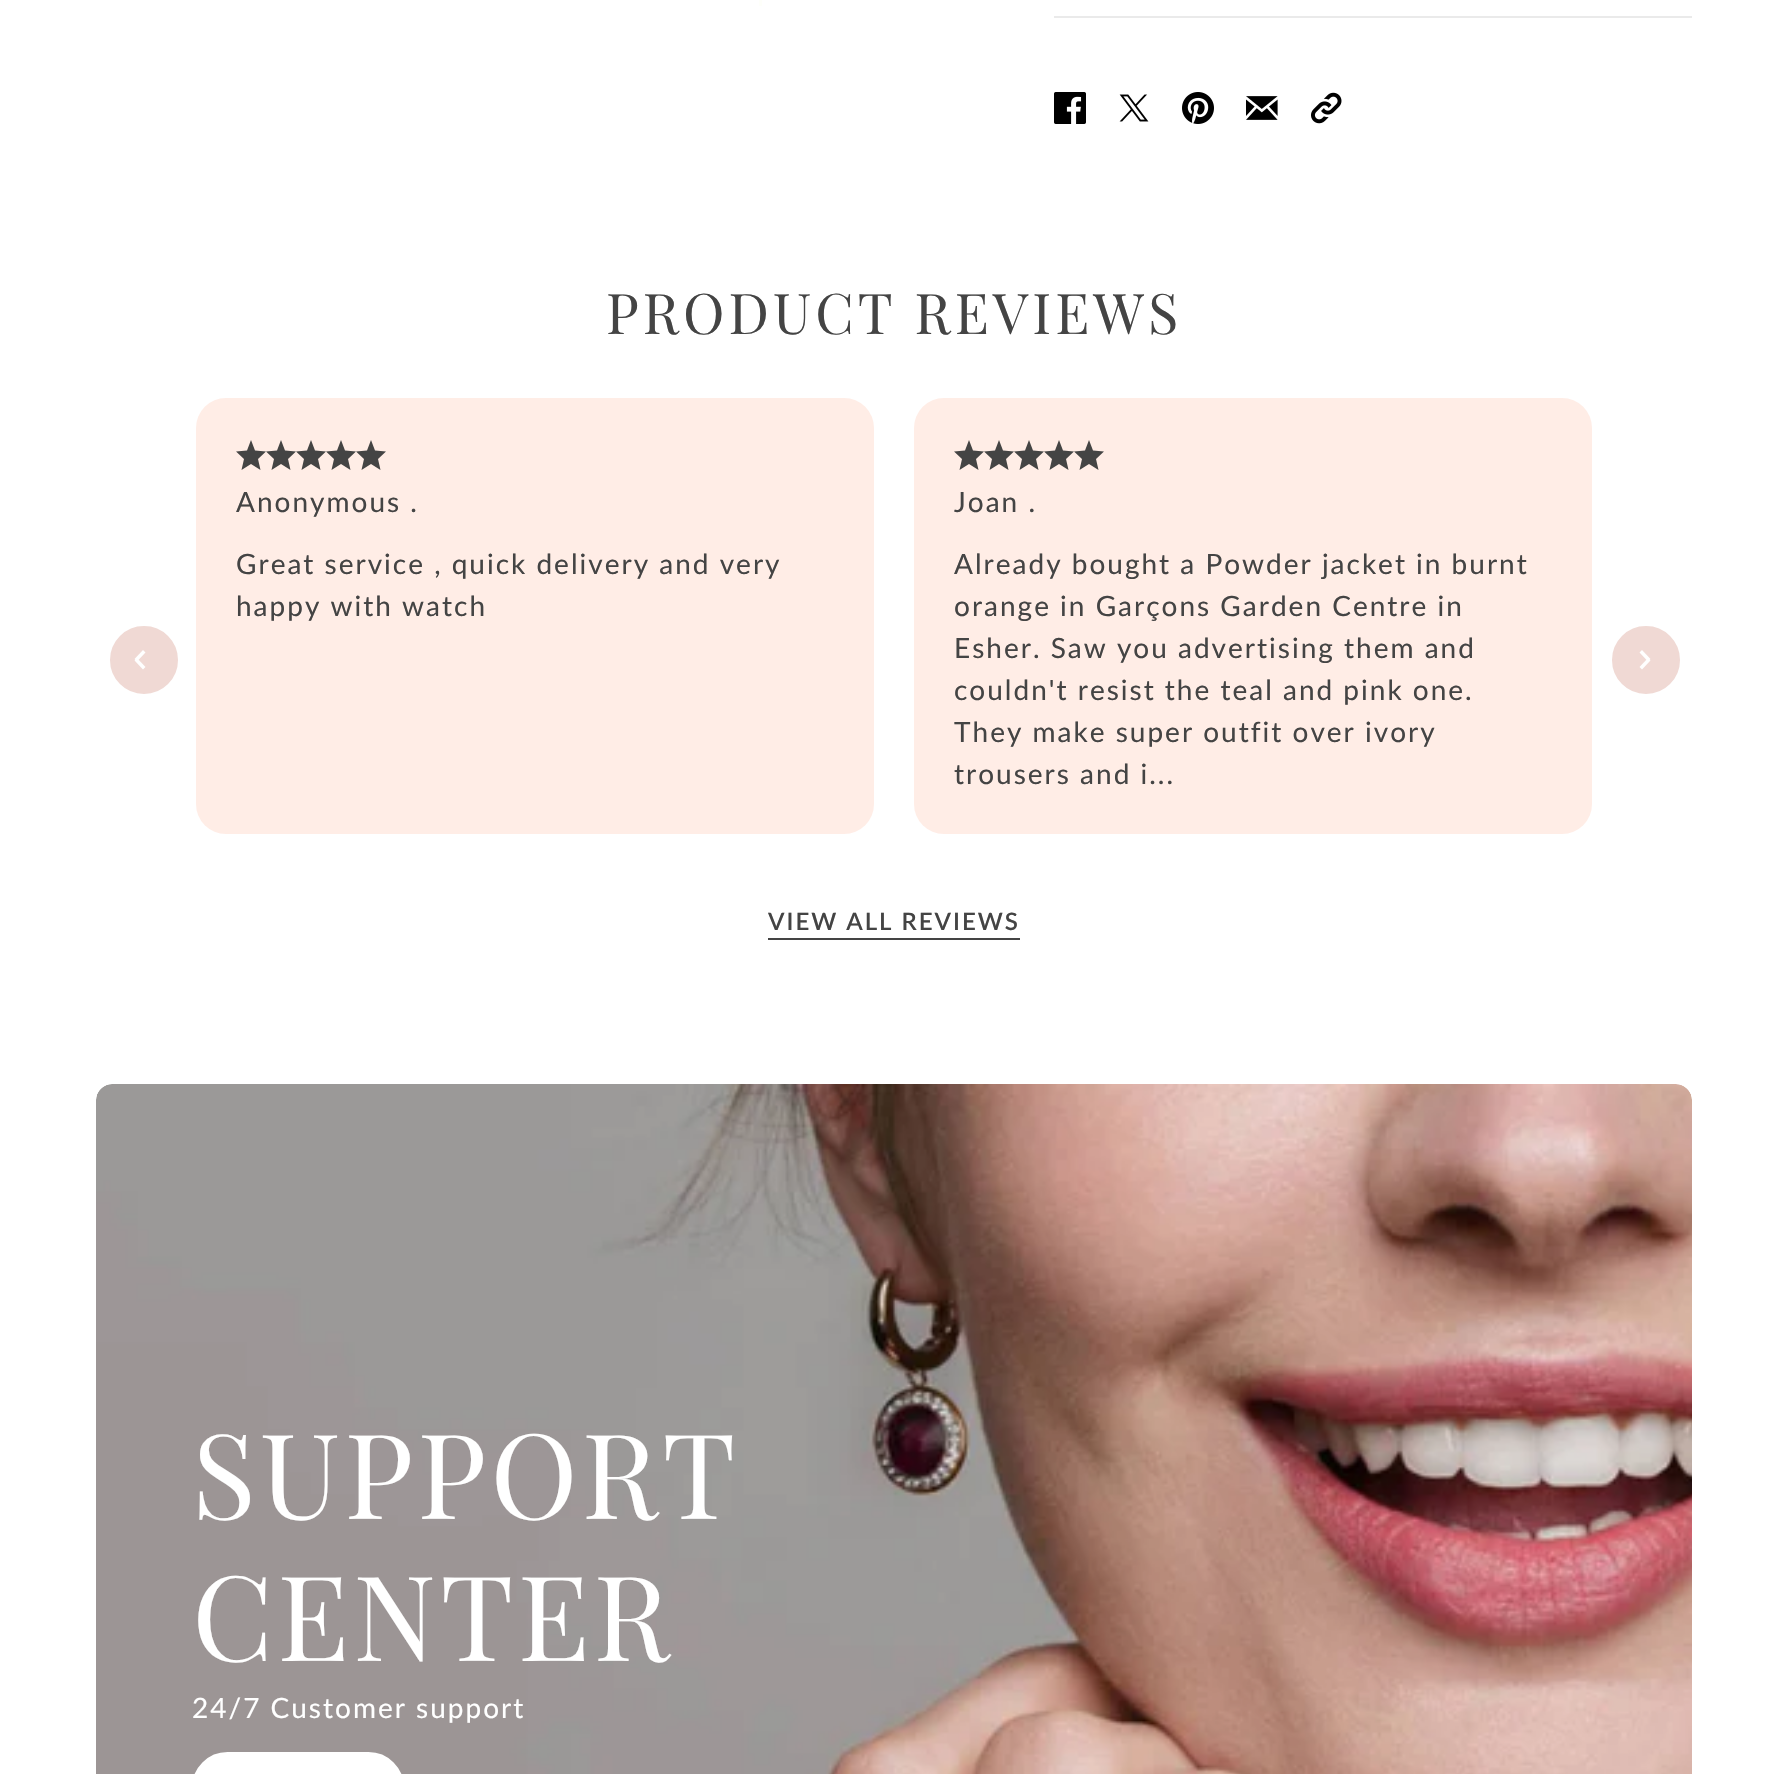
#include "include/core/SkBlurTypes.h"
#include "include/core/SkCanvas.h"
#include "include/core/SkData.h"
#include "include/core/SkFont.h"
#include "include/core/SkFontMgr.h"
#include "include/core/SkImage.h"
#include "include/core/SkMaskFilter.h"
#include "include/core/SkPaint.h"
#include "include/core/SkPathBuilder.h"
#include "include/core/SkTextBlob.h"
#include "include/effects/SkDashPathEffect.h"
#include "include/effects/SkGradientShader.h"
#include "include/utils/SkParsePath.h"

extern sk_sp<SkFontMgr> fontMgr;

void draw(SkCanvas* canvas) {
  SkPaint p;
  p.setAntiAlias(true);
  auto spacedText = [&](const char* s, float x, float y, const SkFont& font, const SkPaint& ink, float letter, float word) {
    std::vector<SkGlyphID> glyphs(font.countText(s, strlen(s), SkTextEncoding::kUTF8));
    std::vector<float> xs(glyphs.size());
    font.textToGlyphs(s, strlen(s), SkTextEncoding::kUTF8, glyphs);
    font.getXPos(glyphs, xs, x);
    float extra = 0;
    for (size_t i = 0; i < glyphs.size(); i++) {
      xs[i] += extra;
      extra += letter + word * (glyphs[i] == font.unicharToGlyph(' '));
    }
    canvas->drawTextBlob(SkTextBlob::MakeFromPosHGlyphs(glyphs, xs, y, font), 0, 0, ink);
  };
  canvas->clear(SK_ColorWHITE);
  p.setColor(SkColorSetRGB(254, 255, 250));
  canvas->drawRect(SkRect::MakeLTRB(759, 0, 762, 6), p);
  p.setColor(SkColorSetRGB(234, 234, 234));
  canvas->drawRect(SkRect::MakeLTRB(1054, 16, 1692, 18), p);
  canvas->drawImageRect(SkImages::DeferredFromEncodedData(SkData::MakeFromFileName("images/1.png")), SkRect::MakeLTRB(1054, 92, 1086, 124), SkSamplingOptions());
  canvas->drawImageRect(SkImages::DeferredFromEncodedData(SkData::MakeFromFileName("images/2.png")), SkRect::MakeLTRB(1119, 94, 1149, 122), SkSamplingOptions());
  canvas->drawImageRect(SkImages::DeferredFromEncodedData(SkData::MakeFromFileName("images/3.png")), SkRect::MakeLTRB(1182, 92, 1214, 124), SkSamplingOptions());
  canvas->drawImageRect(SkImages::DeferredFromEncodedData(SkData::MakeFromFileName("images/4.png")), SkRect::MakeLTRB(1246, 96, 1278, 120), SkSamplingOptions());
  canvas->drawImageRect(SkImages::DeferredFromEncodedData(SkData::MakeFromFileName("images/5.png")), SkRect::MakeLTRB(1311, 92, 1342, 124), SkSamplingOptions());
  p.setColor(SkColorSetRGB(240, 217, 212));
  canvas->drawCircle(144, 660, 33, p);
  p.setStyle(SkPaint::kStroke_Style);
  p.setStrokeWidth(2);
  canvas->drawCircle(144, 660, 33, p);
  p.setStyle(SkPaint::kFill_Style);
  p.setColor(SK_ColorWHITE);
  canvas->drawPath(SkPathBuilder().moveTo(137, 658).lineTo(145.5f, 667).lineTo(143, 669.5f).lineTo(134.5f, 660.5f).close().detach(), p);
  canvas->drawPath(SkPathBuilder().moveTo(134.5f, 659).lineTo(143, 650).lineTo(145.5f, 652.5f).lineTo(137, 661.5f).close().detach(), p);
  p.setColor(SkColorSetRGB(255, 237, 230));
  canvas->drawRoundRect(SkRect::MakeLTRB(196, 398, 874, 834), 30, 30, p);
  p.setColor(SkColorSetRGB(68, 68, 68));
  canvas->drawPath(SkPathBuilder().moveTo(251, 440).lineTo(255, 450.5f).lineTo(266, 451.5f).lineTo(258, 459).lineTo(260.5f, 470).lineTo(251, 464).lineTo(241.5f, 470).lineTo(244, 459).lineTo(236, 451.5f).lineTo(247, 450.5f).close().moveTo(281, 440).lineTo(285, 450.5f).lineTo(296, 451.5f).lineTo(288, 459).lineTo(290.5f, 470).lineTo(281, 464).lineTo(271.5f, 470).lineTo(274, 459).lineTo(266, 451.5f).lineTo(277, 450.5f).close().detach(), p);
  canvas->drawPath(SkPathBuilder().moveTo(311, 440).lineTo(315, 450.5f).lineTo(326, 451.5f).lineTo(318, 459).lineTo(320.5f, 470).lineTo(311, 464).lineTo(301.5f, 470).lineTo(304, 459).lineTo(296, 451.5f).lineTo(307, 450.5f).close().moveTo(341, 440).lineTo(345, 450.5f).lineTo(356, 451.5f).lineTo(348, 459).lineTo(350.5f, 470).lineTo(341, 464).lineTo(331.5f, 470).lineTo(334, 459).lineTo(326, 451.5f).lineTo(337, 450.5f).close().detach(), p);
  canvas->drawPath(SkPathBuilder().moveTo(371, 440).lineTo(375, 450.5f).lineTo(386, 451.5f).lineTo(378, 459).lineTo(380.5f, 470).lineTo(371, 464).lineTo(361.5f, 470).lineTo(364, 459).lineTo(356, 451.5f).lineTo(367, 450.5f).close().detach(), p);
  p.setColor(SkColorSetRGB(255, 237, 230));
  canvas->drawRoundRect(SkRect::MakeLTRB(914, 398, 1592, 834), 30, 30, p);
  p.setColor(SkColorSetRGB(68, 68, 68));
  canvas->drawPath(SkPathBuilder().moveTo(969, 440).lineTo(973, 450.5f).lineTo(984, 451.5f).lineTo(976, 459).lineTo(978.5f, 470).lineTo(969, 464).lineTo(959.5f, 470).lineTo(962, 459).lineTo(954, 451.5f).lineTo(965, 450.5f).close().moveTo(999, 440).lineTo(1003, 450.5f).lineTo(1014, 451.5f).lineTo(1006, 459).lineTo(1008.5f, 470).lineTo(999, 464).lineTo(989.5f, 470).lineTo(992, 459).lineTo(984, 451.5f).lineTo(995, 450.5f).close().detach(), p);
  canvas->drawPath(SkPathBuilder().moveTo(1029, 440).lineTo(1033, 450.5f).lineTo(1044, 451.5f).lineTo(1036, 459).lineTo(1038.5f, 470).lineTo(1029, 464).lineTo(1019.5f, 470).lineTo(1022, 459).lineTo(1014, 451.5f).lineTo(1025, 450.5f).close().moveTo(1059, 440).lineTo(1063, 450.5f).lineTo(1074, 451.5f).lineTo(1066, 459).lineTo(1068.5f, 470).lineTo(1059, 464).lineTo(1049.5f, 470).lineTo(1052, 459).lineTo(1044, 451.5f).lineTo(1055, 450.5f).close().detach(), p);
  canvas->drawPath(SkPathBuilder().moveTo(1089, 440).lineTo(1093, 450.5f).lineTo(1104, 451.5f).lineTo(1096, 459).lineTo(1098.5f, 470).lineTo(1089, 464).lineTo(1079.5f, 470).lineTo(1082, 459).lineTo(1074, 451.5f).lineTo(1085, 450.5f).close().detach(), p);
  p.setColor(SkColorSetRGB(240, 217, 212));
  canvas->drawCircle(1646, 660, 33, p);
  p.setStyle(SkPaint::kStroke_Style);
  canvas->drawCircle(1646, 660, 33, p);
  p.setStyle(SkPaint::kFill_Style);
  p.setColor(SK_ColorWHITE);
  canvas->drawPath(SkPathBuilder().moveTo(1639.5f, 667).lineTo(1648, 658).lineTo(1650.5f, 660.5f).lineTo(1642, 669.5f).close().detach(), p);
  canvas->drawPath(SkPathBuilder().moveTo(1642, 650).lineTo(1650.5f, 659).lineTo(1648, 661.5f).lineTo(1639.5f, 652.5f).close().detach(), p);
  p.setColor(SkColorSetRGB(68, 68, 68));
  canvas->drawRect(SkRect::MakeLTRB(768, 938, 1020, 940), p);
  canvas->drawImageRect(SkImages::DeferredFromEncodedData(SkData::MakeFromFileName("images/6.png")), SkRect::MakeLTRB(96, 1084, 1692, 1774), SkSamplingOptions());
  p.setColor(SK_ColorWHITE);
  canvas->drawRoundRect(SkRect::MakeLTRB(194, 1754, 402, 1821), 43, 43, p);
  p.setStyle(SkPaint::kStroke_Style);
  p.setStrokeWidth(4);
  canvas->drawRoundRect(SkRect::MakeLTRB(194, 1754, 402, 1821), 43, 43, p);
  SkFont font1(fontMgr->matchFamilyStyle("Playfair Display", SkFontStyle::Normal()), 56);
  font1.setSubpixel(true);
  p.setStyle(SkPaint::kFill_Style);
  p.setColor(SkColorSetRGB(68, 68, 68));
  spacedText("PRODUCT REVIEWS", 606, 334, font1, p, 4, 0);
  SkFont font2(fontMgr->matchFamilyStyle("Lato", SkFontStyle::Normal()), 28);
  font2.setSubpixel(true);
  spacedText("Anonymous .", 236, 512, font2, p, 2, 0);
  spacedText("Great service , quick delivery and very", 236, 574, font2, p, 2, 0);
  spacedText("happy with watch", 236, 616, font2, p, 2, 0);
  spacedText("Joan .", 954, 512, font2, p, 2, 0);
  spacedText("Already bought a Powder jacket in burnt", 954, 574, font2, p, 2, 0);
  spacedText("orange in Garçons Garden Centre in", 954, 616, font2, p, 2, 0);
  spacedText("Esher. Saw you advertising them and", 954, 658, font2, p, 2, 0);
  spacedText("couldn't resist the teal and pink one.", 954, 700, font2, p, 2, 0);
  spacedText("They make super outfit over ivory", 954, 742, font2, p, 2, 0);
  spacedText("trousers and i...", 954, 784, font2, p, 2, 0);
  SkFont font3(fontMgr->matchFamilyStyle("Lato", SkFontStyle(600, SkFontStyle::kNormal_Width, SkFontStyle::kUpright_Slant)), 24);
  font3.setSubpixel(true);
  spacedText("VIEW ALL REVIEWS", 768, 930, font3, p, 2, 0);
  SkFont font4(fontMgr->matchFamilyStyle("Playfair Display", SkFontStyle::Normal()), 118);
  font4.setSubpixel(true);
  p.setColor(SK_ColorWHITE);
  spacedText("SUPPORT", 192, 1519, font4, p, 4, 0);
  spacedText("CENTER", 192, 1661, font4, p, 4, 0);
  spacedText("24/7 Customer support", 192, 1718, font2, p, 2, 0);
}
